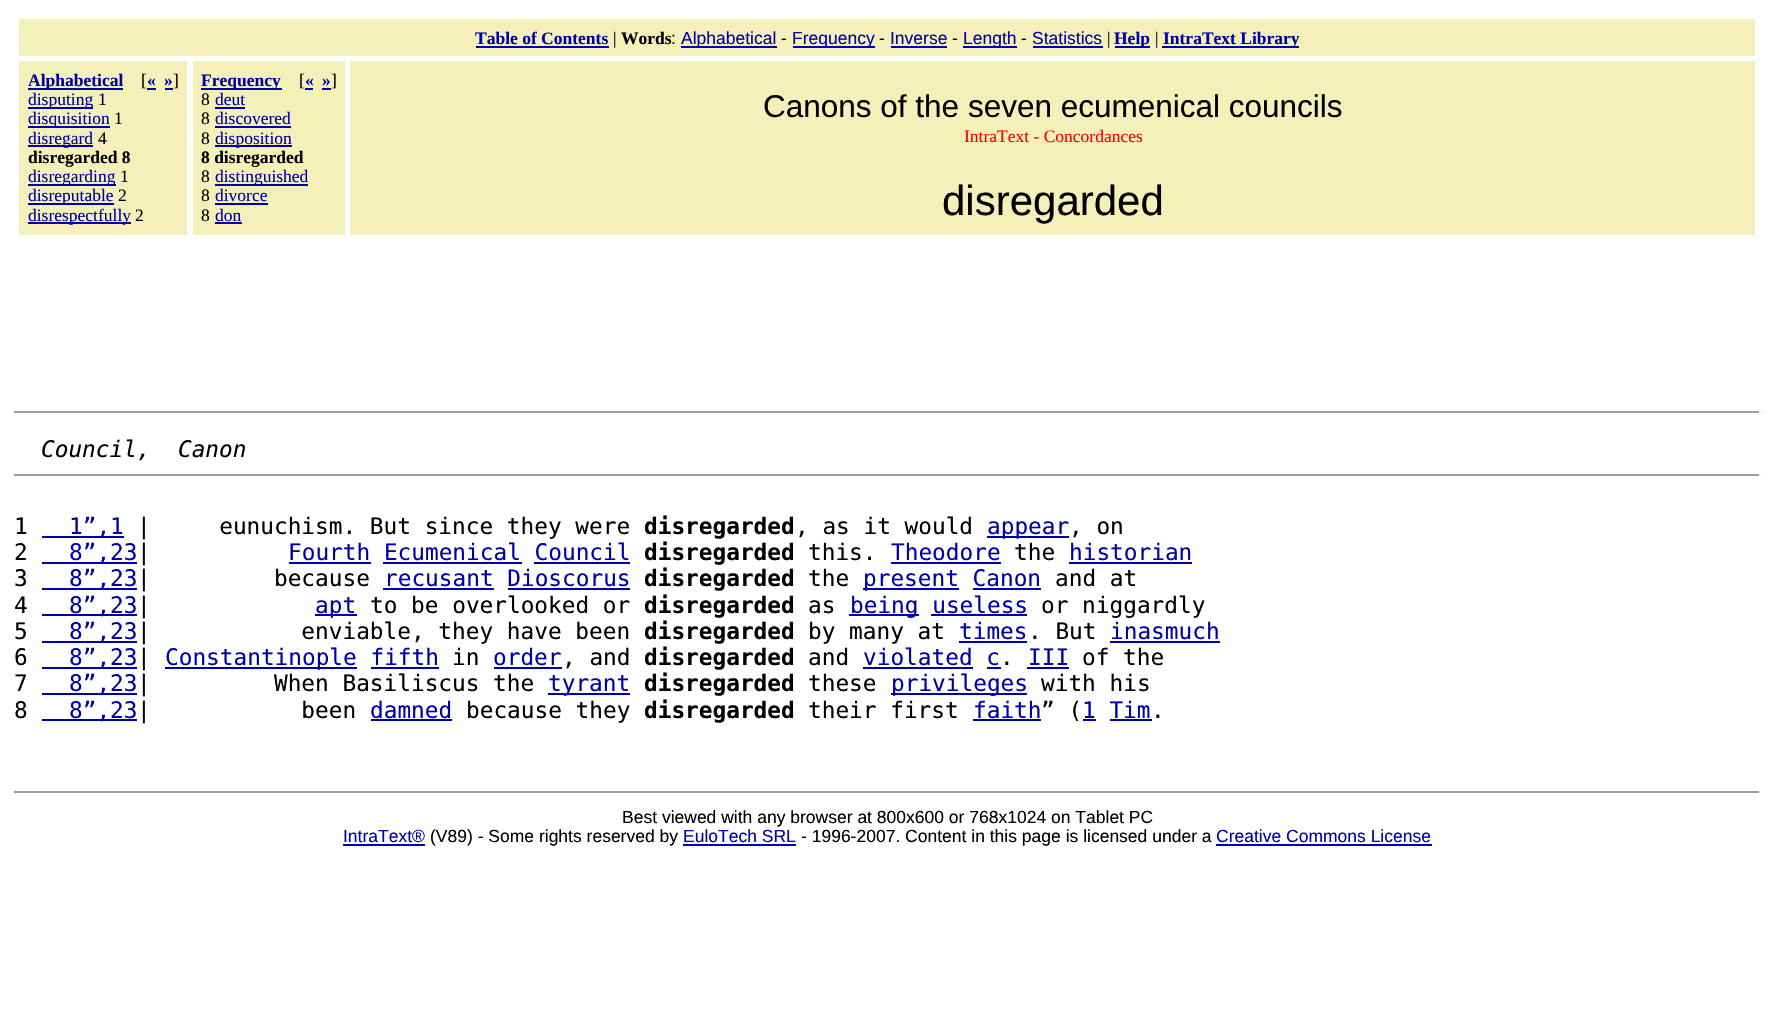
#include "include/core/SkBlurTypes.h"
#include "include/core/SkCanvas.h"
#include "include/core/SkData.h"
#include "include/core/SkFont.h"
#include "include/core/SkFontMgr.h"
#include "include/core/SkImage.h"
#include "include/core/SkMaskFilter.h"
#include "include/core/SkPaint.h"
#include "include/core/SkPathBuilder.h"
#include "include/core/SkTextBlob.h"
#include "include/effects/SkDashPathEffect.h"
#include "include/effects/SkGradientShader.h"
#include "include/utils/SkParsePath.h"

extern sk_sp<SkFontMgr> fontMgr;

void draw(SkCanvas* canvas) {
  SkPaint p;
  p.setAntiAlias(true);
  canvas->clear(SK_ColorWHITE);
  p.setColor(SkColorSetRGB(243, 240, 185));
  canvas->drawRect(SkRect::MakeLTRB(19, 19, 1755, 56), p);
  p.setColor(SkColorSetRGB(0, 0, 170));
  canvas->drawRect(SkRect::MakeLTRB(476, 46, 609, 48), p);
  canvas->drawRect(SkRect::MakeLTRB(681, 46, 777, 48), p);
  canvas->drawRect(SkRect::MakeLTRB(793, 46, 875, 48), p);
  canvas->drawRect(SkRect::MakeLTRB(891, 46, 947, 48), p);
  canvas->drawRect(SkRect::MakeLTRB(963, 46, 1017, 48), p);
  canvas->drawRect(SkRect::MakeLTRB(1033, 46, 1103, 48), p);
  canvas->drawRect(SkRect::MakeLTRB(1115, 46, 1150, 48), p);
  canvas->drawRect(SkRect::MakeLTRB(1162, 46, 1299, 48), p);
  p.setColor(SkColorSetRGB(243, 240, 185));
  canvas->drawRect(SkRect::MakeLTRB(19, 61, 187, 235), p);
  p.setColor(SkColorSetRGB(0, 0, 170));
  canvas->drawRect(SkRect::MakeLTRB(28, 88, 123, 90), p);
  canvas->drawRect(SkRect::MakeLTRB(147, 88, 156, 90), p);
  canvas->drawRect(SkRect::MakeLTRB(165, 88, 173, 90), p);
  canvas->drawRect(SkRect::MakeLTRB(28, 107, 93, 109), p);
  canvas->drawRect(SkRect::MakeLTRB(28, 126, 110, 128), p);
  canvas->drawRect(SkRect::MakeLTRB(28, 145, 93, 147), p);
  canvas->drawRect(SkRect::MakeLTRB(28, 184, 116, 186), p);
  canvas->drawRect(SkRect::MakeLTRB(28, 203, 114, 205), p);
  canvas->drawRect(SkRect::MakeLTRB(28, 222, 131, 224), p);
  p.setColor(SkColorSetRGB(243, 240, 185));
  canvas->drawRect(SkRect::MakeLTRB(193, 61, 345, 235), p);
  p.setColor(SkColorSetRGB(0, 0, 170));
  canvas->drawRect(SkRect::MakeLTRB(201, 88, 282, 90), p);
  canvas->drawRect(SkRect::MakeLTRB(305, 88, 313, 90), p);
  canvas->drawRect(SkRect::MakeLTRB(322, 88, 331, 90), p);
  canvas->drawRect(SkRect::MakeLTRB(215, 107, 245, 109), p);
  canvas->drawRect(SkRect::MakeLTRB(215, 126, 291, 128), p);
  canvas->drawRect(SkRect::MakeLTRB(215, 145, 292, 147), p);
  canvas->drawRect(SkRect::MakeLTRB(215, 184, 308, 186), p);
  canvas->drawRect(SkRect::MakeLTRB(215, 203, 268, 205), p);
  canvas->drawRect(SkRect::MakeLTRB(215, 222, 242, 224), p);
  p.setColor(SkColorSetRGB(243, 240, 185));
  canvas->drawRect(SkRect::MakeLTRB(350, 61, 1755, 235), p);
  p.setColor(SkColorSetRGB(159, 159, 159));
  canvas->drawRect(SkRect::MakeLTRB(14, 411, 1761, 413), p);
  p.setColor(SkColorSetRGB(238, 238, 238));
  canvas->drawRect(SkRect::MakeLTRB(1759, 411, 1761, 413), p);
  p.setColor(SkColorSetRGB(159, 159, 159));
  canvas->drawRect(SkRect::MakeLTRB(14, 474, 1761, 476), p);
  p.setColor(SkColorSetRGB(238, 238, 238));
  canvas->drawRect(SkRect::MakeLTRB(1759, 474, 1761, 476), p);
  p.setColor(SkColorSetRGB(0, 0, 170));
  canvas->drawRect(SkRect::MakeLTRB(42, 536, 124, 538), p);
  canvas->drawRect(SkRect::MakeLTRB(987, 536, 1069, 538), p);
  canvas->drawRect(SkRect::MakeLTRB(42, 562, 137, 564), p);
  canvas->drawRect(SkRect::MakeLTRB(289, 562, 371, 564), p);
  canvas->drawRect(SkRect::MakeLTRB(891, 562, 1001, 564), p);
  canvas->drawRect(SkRect::MakeLTRB(1069, 562, 1192, 564), p);
  canvas->drawRect(SkRect::MakeLTRB(383, 562, 522, 564), p);
  canvas->drawRect(SkRect::MakeLTRB(534, 562, 630, 564), p);
  canvas->drawRect(SkRect::MakeLTRB(42, 588, 137, 590), p);
  canvas->drawRect(SkRect::MakeLTRB(383, 588, 494, 590), p);
  canvas->drawRect(SkRect::MakeLTRB(863, 588, 959, 590), p);
  canvas->drawRect(SkRect::MakeLTRB(508, 588, 630, 590), p);
  canvas->drawRect(SkRect::MakeLTRB(973, 588, 1041, 590), p);
  canvas->drawRect(SkRect::MakeLTRB(42, 614, 137, 616), p);
  canvas->drawRect(SkRect::MakeLTRB(315, 614, 357, 616), p);
  canvas->drawRect(SkRect::MakeLTRB(849, 614, 919, 616), p);
  canvas->drawRect(SkRect::MakeLTRB(931, 614, 1027, 616), p);
  canvas->drawRect(SkRect::MakeLTRB(42, 641, 137, 643), p);
  canvas->drawRect(SkRect::MakeLTRB(959, 641, 1027, 643), p);
  canvas->drawRect(SkRect::MakeLTRB(1110, 641, 1220, 643), p);
  canvas->drawRect(SkRect::MakeLTRB(42, 667, 137, 669), p);
  canvas->drawRect(SkRect::MakeLTRB(165, 667, 357, 669), p);
  canvas->drawRect(SkRect::MakeLTRB(494, 667, 562, 669), p);
  canvas->drawRect(SkRect::MakeLTRB(863, 667, 973, 669), p);
  canvas->drawRect(SkRect::MakeLTRB(1027, 667, 1069, 669), p);
  canvas->drawRect(SkRect::MakeLTRB(371, 667, 439, 669), p);
  canvas->drawRect(SkRect::MakeLTRB(987, 667, 1001, 669), p);
  canvas->drawRect(SkRect::MakeLTRB(42, 693, 137, 695), p);
  canvas->drawRect(SkRect::MakeLTRB(548, 693, 630, 695), p);
  canvas->drawRect(SkRect::MakeLTRB(891, 693, 1027, 695), p);
  canvas->drawRect(SkRect::MakeLTRB(42, 719, 137, 721), p);
  canvas->drawRect(SkRect::MakeLTRB(371, 719, 452, 721), p);
  canvas->drawRect(SkRect::MakeLTRB(973, 719, 1041, 721), p);
  canvas->drawRect(SkRect::MakeLTRB(1083, 719, 1096, 721), p);
  canvas->drawRect(SkRect::MakeLTRB(1110, 719, 1152, 721), p);
  p.setColor(SkColorSetRGB(159, 159, 159));
  canvas->drawRect(SkRect::MakeLTRB(14, 791, 1761, 793), p);
  p.setColor(SkColorSetRGB(238, 238, 238));
  canvas->drawRect(SkRect::MakeLTRB(1759, 791, 1761, 793), p);
  p.setColor(SkColorSetRGB(0, 0, 170));
  canvas->drawRect(SkRect::MakeLTRB(343, 844, 425, 846), p);
  canvas->drawRect(SkRect::MakeLTRB(683, 844, 796, 846), p);
  canvas->drawRect(SkRect::MakeLTRB(1216, 844, 1432, 846), p);
  SkFont font1(fontMgr->matchFamilyStyle("Liberation Serif", SkFontStyle::Bold()), 17.5f);
  font1.setSubpixel(true);
  canvas->drawString("Table of Contents", 475, 44, font1, p);
  SkFont font2(fontMgr->matchFamilyStyle("Liberation Serif", SkFontStyle::Normal()), 17.5f);
  font2.setSubpixel(true);
  p.setColor(SK_ColorBLACK);
  canvas->drawString("|", 613, 44, font2, p);
  canvas->drawString("Words", 621, 44, font1, p);
  SkFont font3(fontMgr->matchFamilyStyle("Liberation Sans", SkFontStyle::Normal()), 17.5f);
  font3.setSubpixel(true);
  canvas->drawString(":", 671, 44, font3, p);
  p.setColor(SkColorSetRGB(0, 0, 170));
  canvas->drawString("Alphabetical", 681, 44, font3, p);
  p.setColor(SK_ColorBLACK);
  canvas->drawString("-", 781, 44, font3, p);
  p.setColor(SkColorSetRGB(0, 0, 170));
  canvas->drawString("Frequency", 792, 44, font3, p);
  p.setColor(SK_ColorBLACK);
  canvas->drawString("-", 879, 44, font3, p);
  p.setColor(SkColorSetRGB(0, 0, 170));
  canvas->drawString("Inverse", 890, 44, font3, p);
  p.setColor(SK_ColorBLACK);
  canvas->drawString("-", 952, 44, font3, p);
  p.setColor(SkColorSetRGB(0, 0, 170));
  canvas->drawString("Length", 963, 44, font3, p);
  p.setColor(SK_ColorBLACK);
  canvas->drawString("-", 1021, 44, font3, p);
  p.setColor(SkColorSetRGB(0, 0, 170));
  canvas->drawString("Statistics", 1032, 44, font3, p);
  p.setColor(SK_ColorBLACK);
  canvas->drawString("|", 1107, 44, font2, p);
  p.setColor(SkColorSetRGB(0, 0, 170));
  canvas->drawString("Help", 1114, 44, font1, p);
  p.setColor(SK_ColorBLACK);
  canvas->drawString("|", 1155, 44, font2, p);
  p.setColor(SkColorSetRGB(0, 0, 170));
  canvas->drawString("IntraText Library", 1163, 44, font1, p);
  canvas->drawString("Alphabetical", 28, 86, font1, p);
  p.setColor(SK_ColorBLACK);
  canvas->drawString("[", 141, 86, font2, p);
  p.setColor(SkColorSetRGB(0, 0, 170));
  canvas->drawString("«", 147, 86, font1, p);
  canvas->drawString("»", 164, 86, font1, p);
  p.setColor(SK_ColorBLACK);
  canvas->drawString("]", 173, 86, font2, p);
  p.setColor(SkColorSetRGB(0, 0, 170));
  canvas->drawString("disputing", 28, 105, font2, p);
  p.setColor(SK_ColorBLACK);
  canvas->drawString("1", 98, 105, font2, p);
  p.setColor(SkColorSetRGB(0, 0, 170));
  canvas->drawString("disquisition", 28, 124, font2, p);
  p.setColor(SK_ColorBLACK);
  canvas->drawString("1", 114, 124, font2, p);
  p.setColor(SkColorSetRGB(0, 0, 170));
  canvas->drawString("disregard", 28, 144, font2, p);
  p.setColor(SK_ColorBLACK);
  canvas->drawString("4", 98, 144, font2, p);
  canvas->drawString("disregarded 8", 28, 163, font1, p);
  p.setColor(SkColorSetRGB(0, 0, 170));
  canvas->drawString("disregarding", 28, 182, font2, p);
  p.setColor(SK_ColorBLACK);
  canvas->drawString("1", 120, 182, font2, p);
  p.setColor(SkColorSetRGB(0, 0, 170));
  canvas->drawString("disreputable", 28, 201, font2, p);
  p.setColor(SK_ColorBLACK);
  canvas->drawString("2", 118, 201, font2, p);
  p.setColor(SkColorSetRGB(0, 0, 170));
  canvas->drawString("disrespectfully", 28, 221, font2, p);
  p.setColor(SK_ColorBLACK);
  canvas->drawString("2", 135, 221, font2, p);
  p.setColor(SkColorSetRGB(0, 0, 170));
  canvas->drawString("Frequency", 201, 86, font1, p);
  p.setColor(SK_ColorBLACK);
  canvas->drawString("[", 299, 86, font2, p);
  p.setColor(SkColorSetRGB(0, 0, 170));
  canvas->drawString("«", 305, 86, font1, p);
  canvas->drawString("»", 322, 86, font1, p);
  p.setColor(SK_ColorBLACK);
  canvas->drawString("]", 331, 86, font2, p);
  canvas->drawString("8", 201, 105, font2, p);
  p.setColor(SkColorSetRGB(0, 0, 170));
  canvas->drawString("deut", 215, 105, font2, p);
  p.setColor(SK_ColorBLACK);
  canvas->drawString("8", 201, 124, font2, p);
  p.setColor(SkColorSetRGB(0, 0, 170));
  canvas->drawString("discovered", 215, 124, font2, p);
  p.setColor(SK_ColorBLACK);
  canvas->drawString("8", 201, 144, font2, p);
  p.setColor(SkColorSetRGB(0, 0, 170));
  canvas->drawString("disposition", 215, 144, font2, p);
  p.setColor(SK_ColorBLACK);
  canvas->drawString("8 disregarded", 201, 163, font1, p);
  canvas->drawString("8", 201, 182, font2, p);
  p.setColor(SkColorSetRGB(0, 0, 170));
  canvas->drawString("distinguished", 215, 182, font2, p);
  p.setColor(SK_ColorBLACK);
  canvas->drawString("8", 201, 201, font2, p);
  p.setColor(SkColorSetRGB(0, 0, 170));
  canvas->drawString("divorce", 215, 201, font2, p);
  p.setColor(SK_ColorBLACK);
  canvas->drawString("8", 201, 221, font2, p);
  p.setColor(SkColorSetRGB(0, 0, 170));
  canvas->drawString("don", 215, 221, font2, p);
  SkFont font4(fontMgr->matchFamilyStyle("Liberation Sans", SkFontStyle::Normal()), 31.5f);
  font4.setSubpixel(true);
  p.setColor(SK_ColorBLACK);
  canvas->drawString("Canons of the seven ecumenical councils", 763, 117, font4, p);
  p.setColor(SkColorSetRGB(255, 0, 0));
  canvas->drawString("IntraText - Concordances", 964, 142, font2, p);
  SkFont font5(fontMgr->matchFamilyStyle("Liberation Sans", SkFontStyle::Normal()), 42);
  font5.setSubpixel(true);
  p.setColor(SK_ColorBLACK);
  canvas->drawString("disregarded", 942, 215, font5, p);
  SkFont font6(fontMgr->matchFamilyStyle("DejaVu Sans Mono", SkFontStyle::Italic()), 22.75f);
  font6.setSubpixel(true);
  canvas->drawString("Council,  Canon", 41, 457, font6, p);
  SkFont font7(fontMgr->matchFamilyStyle("DejaVu Sans Mono", SkFontStyle::Normal()), 22.75f);
  font7.setSubpixel(true);
  canvas->drawString("1", 14, 534, font7, p);
  p.setColor(SkColorSetRGB(0, 0, 170));
  canvas->drawString("1”,1", 69, 534, font7, p);
  p.setColor(SK_ColorBLACK);
  canvas->drawString("|     eunuchism. But since they were", 137, 534, font7, p);
  SkFont font8(fontMgr->matchFamilyStyle("DejaVu Sans Mono", SkFontStyle::Bold()), 22.75f);
  font8.setSubpixel(true);
  canvas->drawString("disregarded", 644, 534, font8, p);
  canvas->drawString(", as it would", 795, 534, font7, p);
  p.setColor(SkColorSetRGB(0, 0, 170));
  canvas->drawString("appear", 987, 534, font7, p);
  p.setColor(SK_ColorBLACK);
  canvas->drawString(", on", 1069, 534, font7, p);
  canvas->drawString("2", 14, 560, font7, p);
  p.setColor(SkColorSetRGB(0, 0, 170));
  canvas->drawString("8”,23", 69, 560, font7, p);
  p.setColor(SK_ColorBLACK);
  canvas->drawString("|", 137, 560, font7, p);
  p.setColor(SkColorSetRGB(0, 0, 170));
  canvas->drawString("Fourth Ecumenical Council", 288, 560, font7, p);
  p.setColor(SK_ColorBLACK);
  canvas->drawString("disregarded", 644, 560, font8, p);
  canvas->drawString("this.", 808, 560, font7, p);
  p.setColor(SkColorSetRGB(0, 0, 170));
  canvas->drawString("Theodore", 891, 560, font7, p);
  p.setColor(SK_ColorBLACK);
  canvas->drawString("the", 1014, 560, font7, p);
  p.setColor(SkColorSetRGB(0, 0, 170));
  canvas->drawString("historian", 1069, 560, font7, p);
  p.setColor(SK_ColorBLACK);
  canvas->drawString("3", 14, 586, font7, p);
  p.setColor(SkColorSetRGB(0, 0, 170));
  canvas->drawString("8”,23", 69, 586, font7, p);
  p.setColor(SK_ColorBLACK);
  canvas->drawString("|         because", 137, 586, font7, p);
  p.setColor(SkColorSetRGB(0, 0, 170));
  canvas->drawString("recusant Dioscorus", 384, 586, font7, p);
  p.setColor(SK_ColorBLACK);
  canvas->drawString("disregarded", 644, 586, font8, p);
  canvas->drawString("the", 808, 586, font7, p);
  p.setColor(SkColorSetRGB(0, 0, 170));
  canvas->drawString("present Canon", 863, 586, font7, p);
  p.setColor(SK_ColorBLACK);
  canvas->drawString("and at", 1055, 586, font7, p);
  canvas->drawString("4", 14, 613, font7, p);
  p.setColor(SkColorSetRGB(0, 0, 170));
  canvas->drawString("8”,23", 69, 613, font7, p);
  p.setColor(SK_ColorBLACK);
  canvas->drawString("|", 137, 613, font7, p);
  p.setColor(SkColorSetRGB(0, 0, 170));
  canvas->drawString("apt", 315, 613, font7, p);
  p.setColor(SK_ColorBLACK);
  canvas->drawString("to be overlooked or", 370, 613, font7, p);
  canvas->drawString("disregarded", 644, 613, font8, p);
  canvas->drawString("as", 808, 613, font7, p);
  p.setColor(SkColorSetRGB(0, 0, 170));
  canvas->drawString("being useless", 850, 613, font7, p);
  p.setColor(SK_ColorBLACK);
  canvas->drawString("or niggardly", 1041, 613, font7, p);
  canvas->drawString("5", 14, 639, font7, p);
  p.setColor(SkColorSetRGB(0, 0, 170));
  canvas->drawString("8”,23", 69, 639, font7, p);
  p.setColor(SK_ColorBLACK);
  canvas->drawString("|           enviable, they have been", 137, 639, font7, p);
  canvas->drawString("disregarded", 644, 639, font8, p);
  canvas->drawString("by many at", 808, 639, font7, p);
  p.setColor(SkColorSetRGB(0, 0, 170));
  canvas->drawString("times", 959, 639, font7, p);
  p.setColor(SK_ColorBLACK);
  canvas->drawString(". But", 1028, 639, font7, p);
  p.setColor(SkColorSetRGB(0, 0, 170));
  canvas->drawString("inasmuch", 1110, 639, font7, p);
  p.setColor(SK_ColorBLACK);
  canvas->drawString("6", 14, 665, font7, p);
  p.setColor(SkColorSetRGB(0, 0, 170));
  canvas->drawString("8”,23", 69, 665, font7, p);
  p.setColor(SK_ColorBLACK);
  canvas->drawString("|", 137, 665, font7, p);
  p.setColor(SkColorSetRGB(0, 0, 170));
  canvas->drawString("Constantinople fifth", 165, 665, font7, p);
  p.setColor(SK_ColorBLACK);
  canvas->drawString("in", 452, 665, font7, p);
  p.setColor(SkColorSetRGB(0, 0, 170));
  canvas->drawString("order", 493, 665, font7, p);
  p.setColor(SK_ColorBLACK);
  canvas->drawString(", and", 562, 665, font7, p);
  canvas->drawString("disregarded", 644, 665, font8, p);
  canvas->drawString("and", 808, 665, font7, p);
  p.setColor(SkColorSetRGB(0, 0, 170));
  canvas->drawString("violated c", 863, 665, font7, p);
  p.setColor(SK_ColorBLACK);
  canvas->drawString(".", 1000, 665, font7, p);
  p.setColor(SkColorSetRGB(0, 0, 170));
  canvas->drawString("III", 1028, 665, font7, p);
  p.setColor(SK_ColorBLACK);
  canvas->drawString("of the", 1082, 665, font7, p);
  canvas->drawString("7", 14, 691, font7, p);
  p.setColor(SkColorSetRGB(0, 0, 170));
  canvas->drawString("8”,23", 69, 691, font7, p);
  p.setColor(SK_ColorBLACK);
  canvas->drawString("|         When Basiliscus the", 137, 691, font7, p);
  p.setColor(SkColorSetRGB(0, 0, 170));
  canvas->drawString("tyrant", 548, 691, font7, p);
  p.setColor(SK_ColorBLACK);
  canvas->drawString("disregarded", 644, 691, font8, p);
  canvas->drawString("these", 808, 691, font7, p);
  p.setColor(SkColorSetRGB(0, 0, 170));
  canvas->drawString("privileges", 891, 691, font7, p);
  p.setColor(SK_ColorBLACK);
  canvas->drawString("with his", 1041, 691, font7, p);
  canvas->drawString("8", 14, 718, font7, p);
  p.setColor(SkColorSetRGB(0, 0, 170));
  canvas->drawString("8”,23", 69, 718, font7, p);
  p.setColor(SK_ColorBLACK);
  canvas->drawString("|           been", 137, 718, font7, p);
  p.setColor(SkColorSetRGB(0, 0, 170));
  canvas->drawString("damned", 370, 718, font7, p);
  p.setColor(SK_ColorBLACK);
  canvas->drawString("because they", 466, 718, font7, p);
  canvas->drawString("disregarded", 644, 718, font8, p);
  canvas->drawString("their first", 808, 718, font7, p);
  p.setColor(SkColorSetRGB(0, 0, 170));
  canvas->drawString("faith", 973, 718, font7, p);
  p.setColor(SK_ColorBLACK);
  canvas->drawString("” (", 1041, 718, font7, p);
  p.setColor(SkColorSetRGB(0, 0, 170));
  canvas->drawString("1 Tim", 1082, 718, font7, p);
  p.setColor(SK_ColorBLACK);
  canvas->drawString(".", 1151, 718, font7, p);
  canvas->drawString("Best viewed with any browser at 800x600 or 768x1024 on Tablet PC", 622, 823, font3, p);
  p.setColor(SkColorSetRGB(0, 0, 170));
  canvas->drawString("IntraText®", 343, 842, font3, p);
  p.setColor(SK_ColorBLACK);
  canvas->drawString("(V89) - Some rights reserved by", 430, 842, font3, p);
  p.setColor(SkColorSetRGB(0, 0, 170));
  canvas->drawString("EuloTech SRL", 683, 842, font3, p);
  p.setColor(SK_ColorBLACK);
  canvas->drawString("- 1996-2007. Content in this page is licensed under a", 801, 842, font3, p);
  p.setColor(SkColorSetRGB(0, 0, 170));
  canvas->drawString("Creative Commons License", 1216, 842, font3, p);
}
